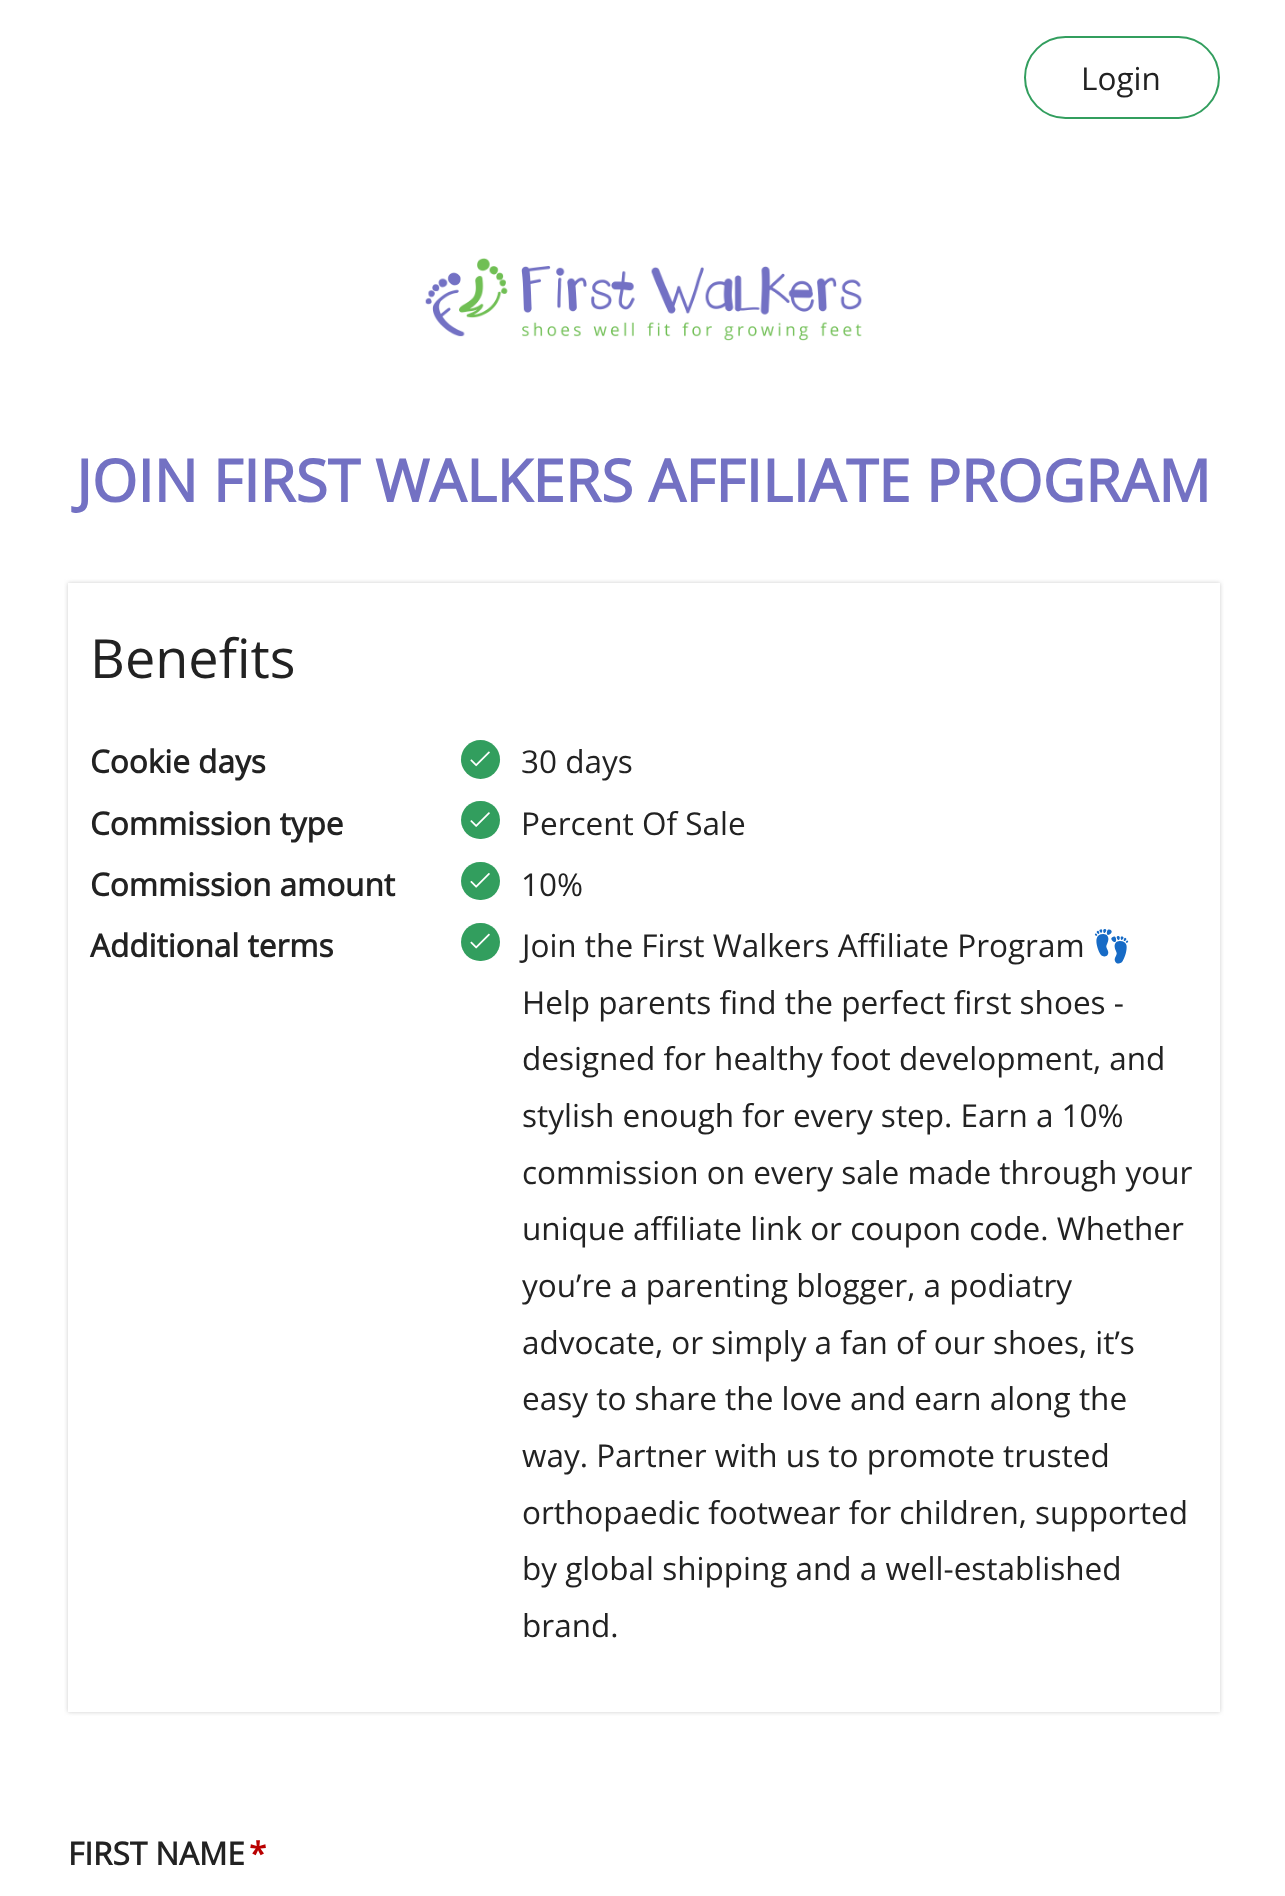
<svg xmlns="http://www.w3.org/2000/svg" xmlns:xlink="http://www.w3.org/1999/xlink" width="1285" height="1896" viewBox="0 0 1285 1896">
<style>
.cls-1{font:31.5px Open Sans;fill:#222222}
.cls-2{font:bold 58.5px Open Sans;fill:#7371c3}
.cls-3{font:54px Open Sans;fill:#222222}
.cls-4{font:bold 31.5px Open Sans;fill:#222222}
.cls-5{font:31.5px Noto Color Emoji;fill:#222222}
.cls-6{font:bold 31.5px Open Sans;fill:#b90000}
</style>
<rect width="100%" height="100%" fill="#ffffff"/>
<rect fill="none" stroke="#329e5e" stroke-width="2" x="1025" y="37" width="194" height="81" rx="40.5"/>
<image xlink:href="image0.png" x="425" y="258" width="437" height="83"/>
<rect fill="#cccccc" filter="blur(2px)" x="68" y="583" width="1152" height="1129"/>
<rect fill="#ffffff" x="68" y="583" width="1152" height="1129"/>
<circle fill="#329e5e" cx="480.5" cy="759.5" r="19.5"/>
<image xlink:href="image1.png" x="470" y="751" width="20" height="16"/>
<rect fill="#329e5e" x="461" y="801" width="39" height="38" rx="19"/>
<image xlink:href="image2.png" x="470" y="812" width="20" height="15"/>
<rect fill="#329e5e" x="461" y="862" width="39" height="38" rx="19"/>
<image xlink:href="image3.png" x="470" y="873" width="20" height="15"/>
<rect fill="#329e5e" x="461" y="923" width="39" height="38" rx="19"/>
<image xlink:href="image4.png" x="470" y="933" width="20" height="16"/>
<text class="cls-1" x="1081" y="90">Login</text>
<text class="cls-2" x="76" y="502">JOIN FIRST WALKERS AFFILIATE PROGRAM</text>
<text class="cls-3" x="90" y="678">Benefits</text>
<text class="cls-4" x="90" y="773">Cookie days</text>
<text class="cls-1" x="521" y="773">30 days</text>
<text class="cls-4" x="90" y="835">Commission type</text>
<text class="cls-1" x="521" y="835">Percent Of Sale</text>
<text class="cls-4" x="90" y="896">Commission amount</text>
<text class="cls-1" x="521" y="896">10%</text>
<text class="cls-4" x="90" y="957">Additional terms</text>
<text class="cls-1" x="522" y="957">Join the First Walkers Affiliate Program</text>
<text class="cls-5" x="1092" y="957">👣</text>
<text class="cls-1"><tspan x="522" y="1014">Help parents find the perfect first shoes -</tspan><tspan x="522" y="1070">designed for healthy foot development, and</tspan><tspan x="522" y="1127">stylish enough for every step. Earn a 10%</tspan><tspan x="522" y="1184">commission on every sale made through your</tspan><tspan x="522" y="1240">unique affiliate link or coupon code. Whether</tspan><tspan x="522" y="1297">you’re a parenting blogger, a podiatry</tspan><tspan x="522" y="1354">advocate, or simply a fan of our shoes, it’s</tspan><tspan x="522" y="1410">easy to share the love and earn along the</tspan><tspan x="522" y="1467">way. Partner with us to promote trusted</tspan><tspan x="522" y="1524">orthopaedic footwear for children, supported</tspan><tspan x="522" y="1580">by global shipping and a well-established</tspan><tspan x="522" y="1637">brand.</tspan></text>
<text class="cls-4" x="68" y="1865">FIRST NAME</text>
<text class="cls-6" x="249" y="1865">*</text>
</svg>
